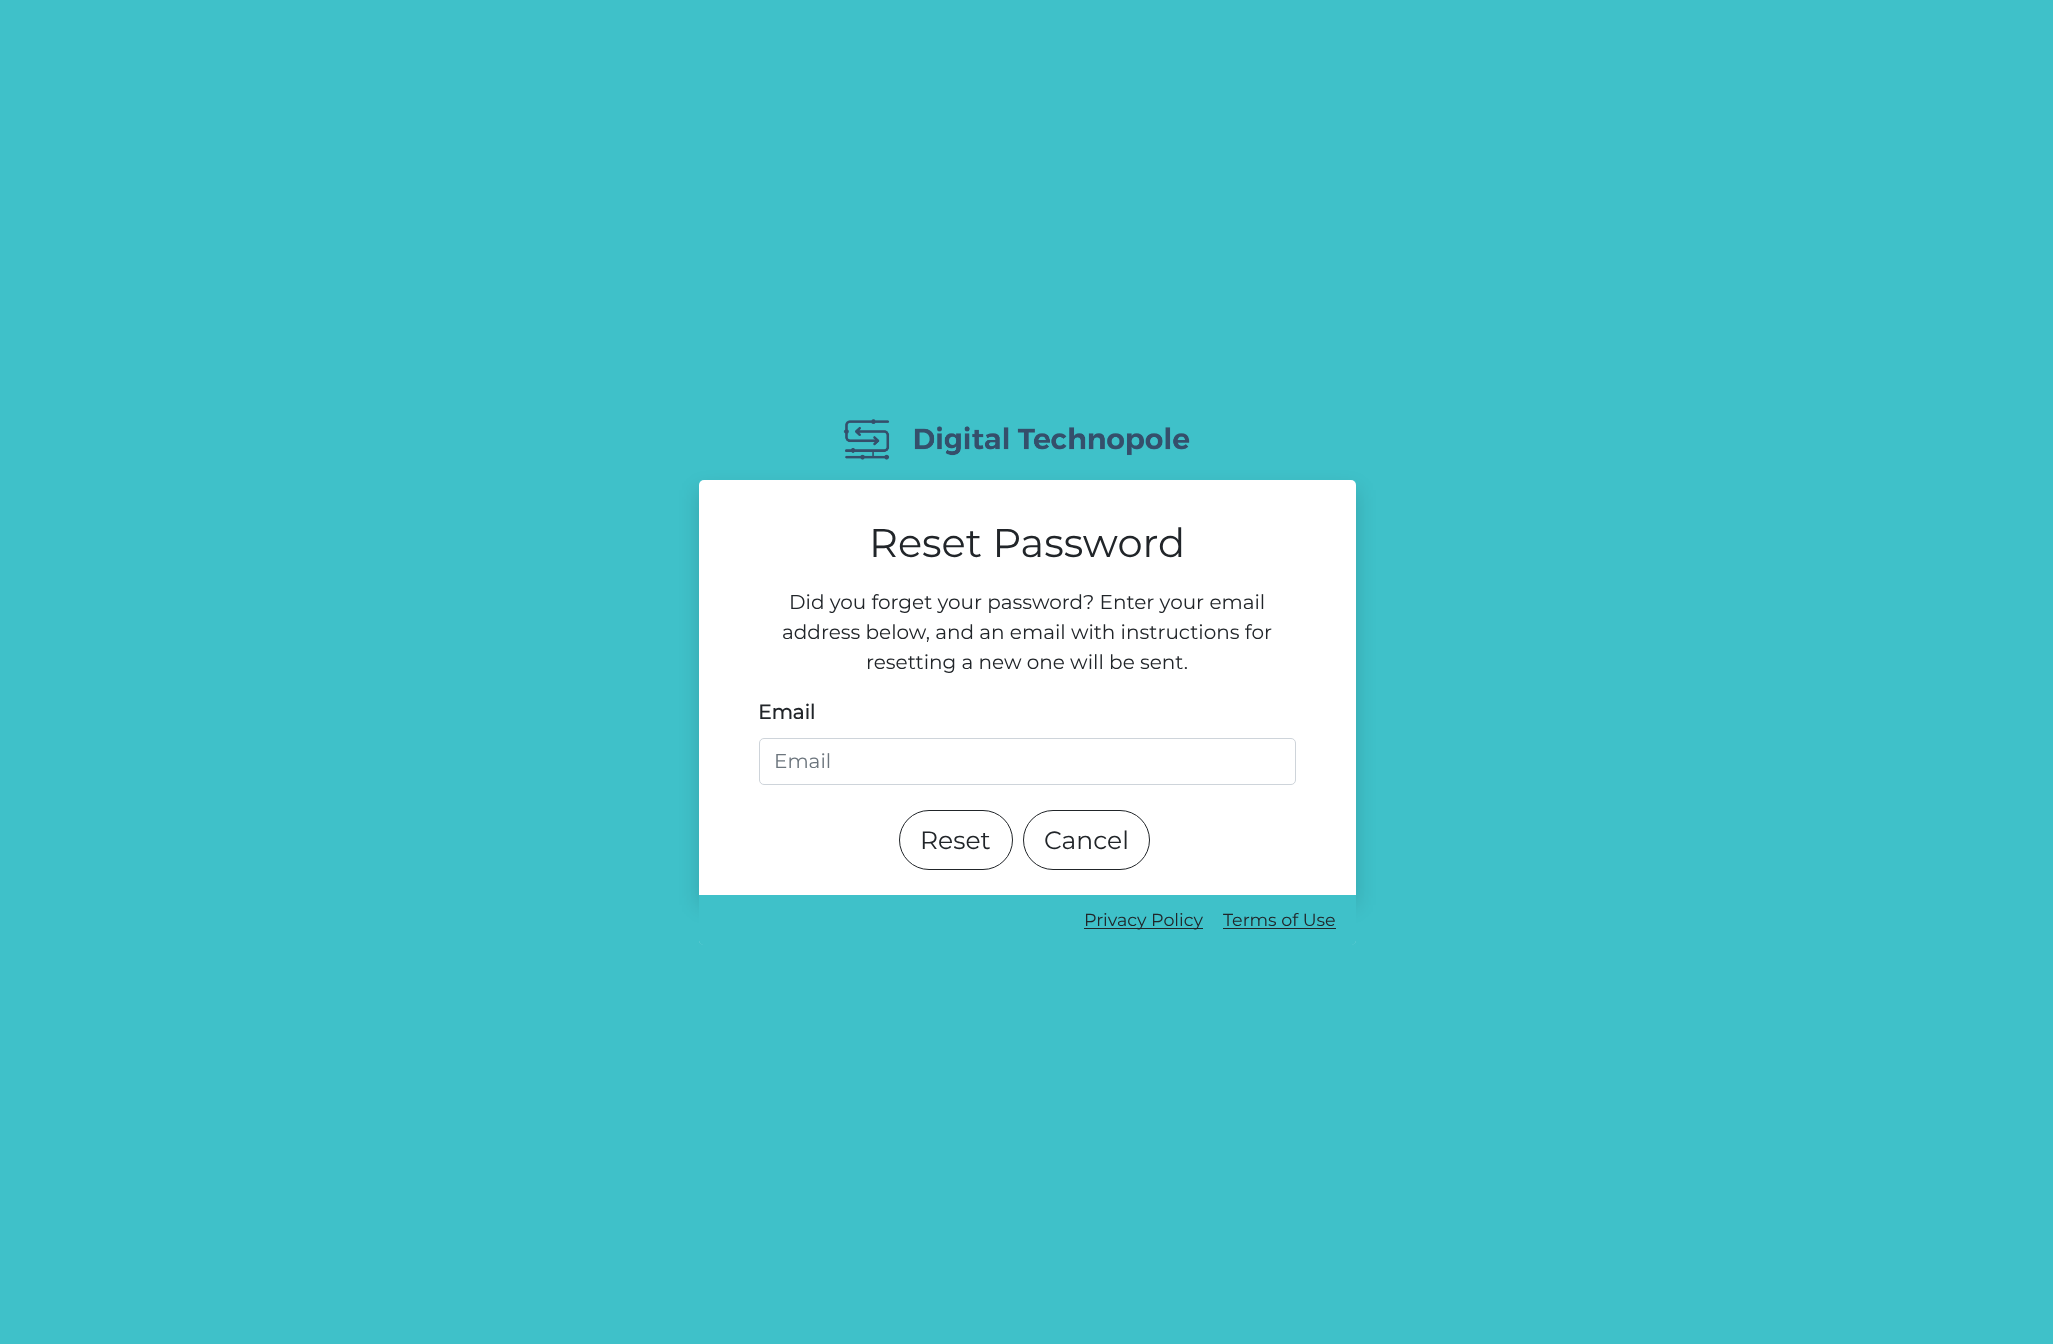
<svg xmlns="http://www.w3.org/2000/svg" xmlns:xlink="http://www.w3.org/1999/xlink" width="2053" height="1344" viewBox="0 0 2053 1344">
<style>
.cls-1{font:100 40px Montserrat;fill:#212529}
.cls-2{font:100 20px Montserrat;fill:#212529}
.cls-3{font:bold 20px Montserrat;fill:#212529}
.cls-4{font:100 20px Montserrat;fill:#6c757d}
.cls-5{font:100 25px Montserrat;fill:#212529}
.cls-6{font:100 17.5px Montserrat;fill:#212529}
</style>
<defs>
<clipPath id="clip1"><path d="M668 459H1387V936H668ZM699 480H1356V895H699Z" clip-rule="evenodd"/></clipPath>
</defs>
<rect width="100%" height="100%" fill="#3fc1c9"/>
<image xlink:href="image0.png" x="843" y="419" width="347" height="41"/>
<rect fill="#ffffff" x="699" y="480" width="657" height="465" rx="5"/>
<g clip-path="url(#clip1)">
<rect fill="#000000" fill-opacity="0.15" filter="blur(10px)" x="699" y="490" width="657" height="415"/>
</g>
<rect fill="none" stroke="#ced4da" x="759.5" y="738.5" width="536" height="46" rx="4.5"/>
<rect fill="none" stroke="#212529" x="899.5" y="810.5" width="113" height="59" rx="29.5"/>
<rect fill="none" stroke="#212529" x="1023.5" y="810.5" width="126" height="59" rx="29.5"/>
<path fill="#3fc1c9" d="M699 895H1356V941C1356 943 1354 945 1352 945H703C701 945 699 943 699 941Z"/>
<rect fill="#212529" x="1084" y="928" width="119" height="1"/>
<rect fill="#212529" x="1223" y="928" width="113" height="1"/>
<text class="cls-1" x="869" y="557">Reset Password</text>
<text class="cls-2" x="789" y="609">Did you forget your password? Enter your email</text>
<text class="cls-2" x="782" y="639">address below, and an email with instructions for</text>
<text class="cls-2" x="866" y="669">resetting a new one will be sent.</text>
<text class="cls-3" x="758" y="719">Email</text>
<text class="cls-4" x="774" y="768">Email</text>
<text class="cls-5" x="920" y="849">Reset</text>
<text class="cls-5" x="1044" y="849">Cancel</text>
<text class="cls-6" x="1084" y="926">Privacy Policy</text>
<text class="cls-6" x="1223" y="926">Terms of Use</text>
</svg>
